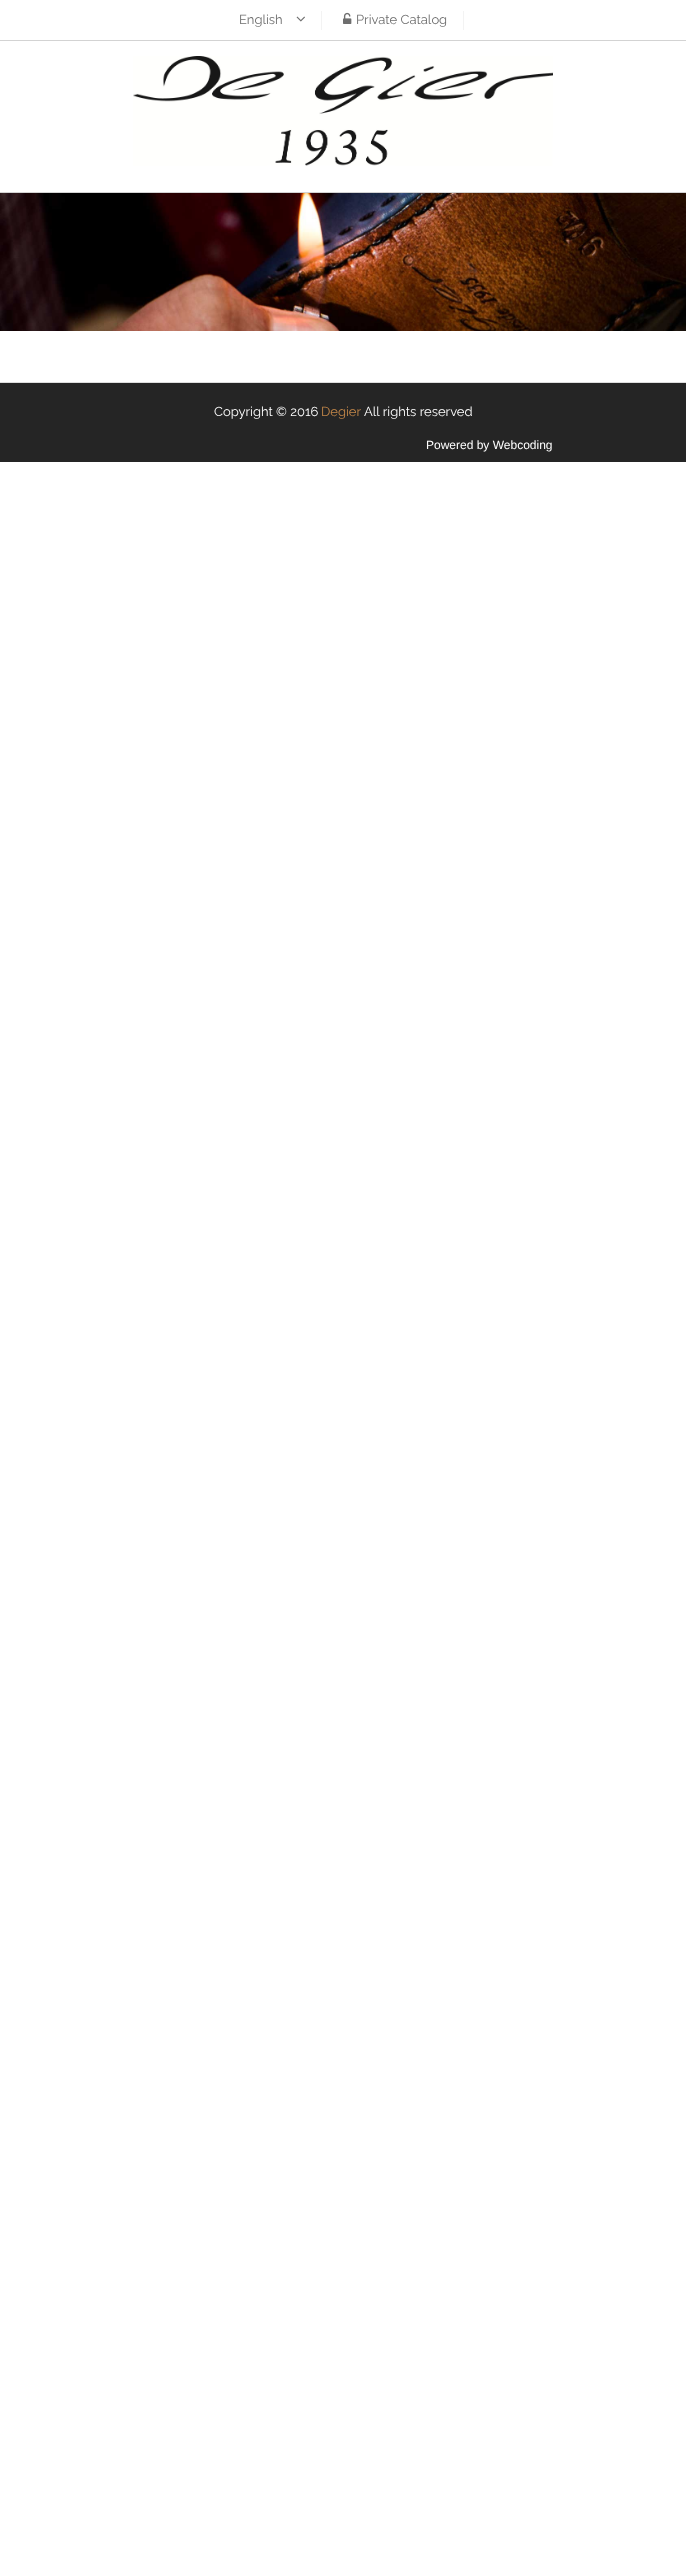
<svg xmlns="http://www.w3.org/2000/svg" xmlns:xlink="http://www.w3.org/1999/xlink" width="686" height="2562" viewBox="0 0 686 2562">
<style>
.cls-1{font:13px Raleway;fill:#6e6e6e}
.cls-2{font:13px Raleway;fill:#ffffff}
.cls-3{font:13px Raleway;fill:#c38749}
.cls-4{font:12px Liberation Sans;fill:#ffffff}
</style>
<rect width="100%" height="100%" fill="#ffffff"/>
<rect fill="#d3d3d3" x="0" y="40" width="686" height="1"/>
<rect fill="#f3f3f3" x="321" y="11" width="1" height="19"/>
<image xlink:href="image0.png" x="296" y="16" width="9" height="6"/>
<rect fill="#f3f3f3" x="463" y="11" width="1" height="19"/>
<image xlink:href="image1.png" x="343" y="12" width="9" height="12"/>
<rect fill="#d3d3d3" x="0" y="192" width="686" height="1"/>
<image xlink:href="image2.png" x="133" y="56" width="420" height="110"/>
<image xlink:href="image3.png" x="0" y="193" width="686" height="138"/>
<rect fill="#dddddd" x="0" y="382" width="686" height="1"/>
<rect fill="#252525" x="0" y="383" width="686" height="79"/>
<text class="cls-1" x="239" y="24">English</text>
<text class="cls-1" x="356" y="24">Private Catalog</text>
<text class="cls-2" x="214" y="416">Copyright © 2016</text>
<text class="cls-3" x="321" y="416">Degier</text>
<text class="cls-2" x="364" y="416">All rights reserved</text>
<text class="cls-4" x="426" y="449">Powered by Webcoding</text>
</svg>
